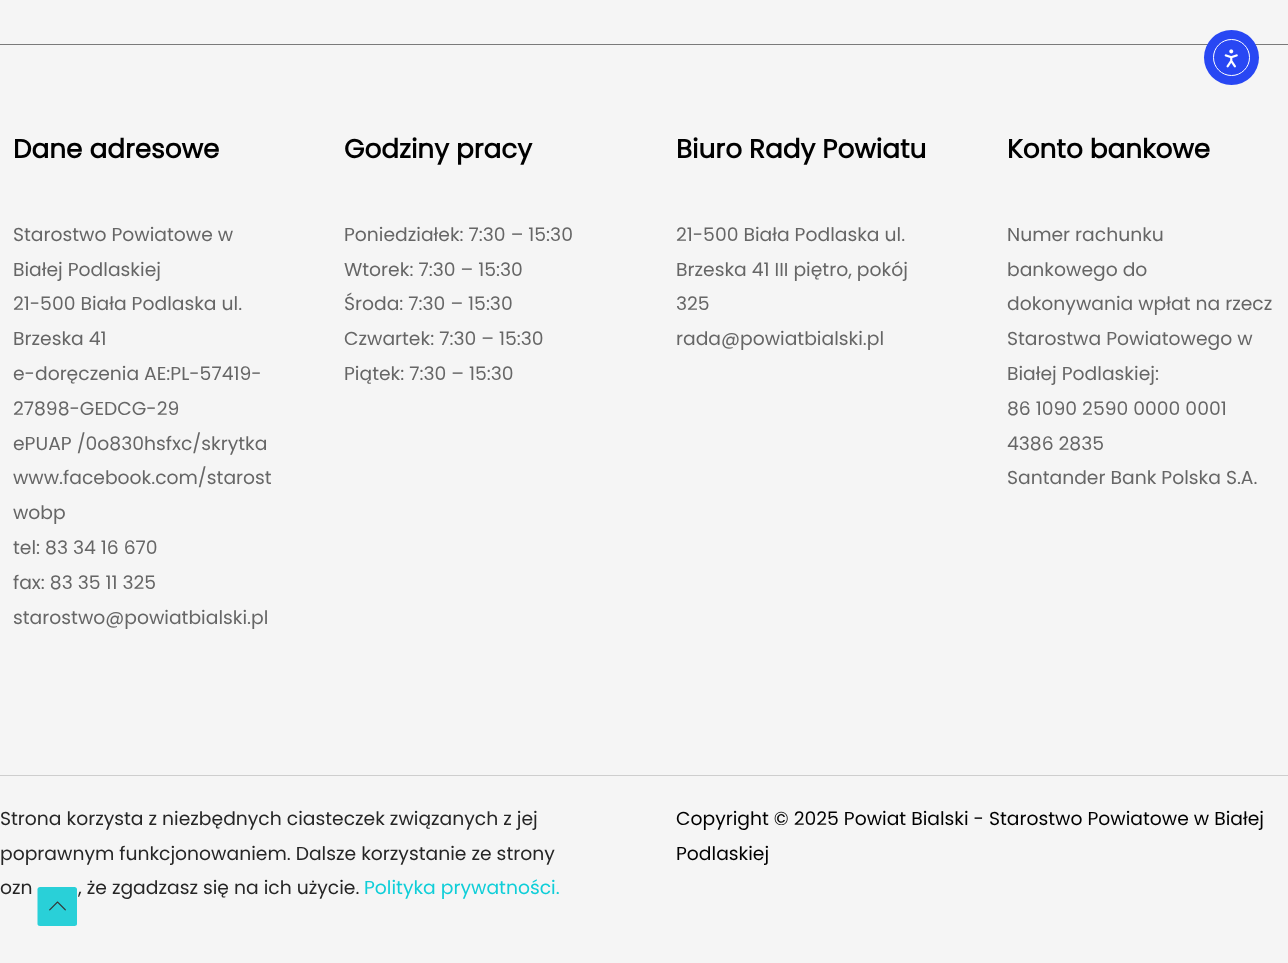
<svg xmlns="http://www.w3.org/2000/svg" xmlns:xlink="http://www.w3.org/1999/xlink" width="1288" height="963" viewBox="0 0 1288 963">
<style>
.cls-1{font:bold 26.25px Poppins;fill:#000000}
.cls-2{font:18.75px Poppins;fill:#666666}
.cls-3{font:18.75px Poppins;fill:#262626}
.cls-4{font:18.75px Poppins;fill:#0fced8}
.cls-5{font:18.75px Poppins;fill:#000000}
</style>
<rect width="100%" height="100%" fill="#f5f5f5"/>
<rect fill="#7a7a7a" x="0" y="44" width="1288" height="1"/>
<circle fill="#2847f3" cx="1231.5" cy="57.5" r="27.5"/>
<circle fill="none" stroke="#ffffff" cx="1231.5" cy="57.5" r="18"/>
<image xlink:href="image0.png" x="1224" y="49" width="14" height="19"/>
<rect fill="#cecece" x="0" y="775" width="1288" height="1"/>
<path fill="#29d0d8" d="M74.5 926H40C38.5 926 37.5 925 37.5 924V889.5C37.5 888 38.5 887 40 887H74.5C76 887 77 888 77 889.5V924C77 925 76 926 74.5 926Z"/>
<image xlink:href="image1.png" x="49" y="901" width="17" height="10"/>
<text class="cls-1" x="13" y="158">Dane adresowe</text>
<text class="cls-2"><tspan x="13" y="241">Starostwo Powiatowe w</tspan><tspan x="13" y="276">Białej Podlaskiej</tspan><tspan x="13" y="310">21-500 Biała Podlaska ul.</tspan><tspan x="13" y="345">Brzeska 41</tspan><tspan x="13" y="380">e-doręczenia AE:PL-57419-</tspan><tspan x="13" y="415">27898-GEDCG-29</tspan><tspan x="13" y="450">ePUAP /0o830hsfxc/skrytka</tspan><tspan x="13" y="484">www.facebook.com/starost</tspan><tspan x="13" y="519">wobp</tspan><tspan x="13" y="554">tel: 83 34 16 670</tspan><tspan x="13" y="589">fax: 83 35 11 325</tspan><tspan x="13" y="624">starostwo@powiatbialski.pl</tspan></text>
<text class="cls-1" x="344" y="158">Godziny pracy</text>
<text class="cls-2"><tspan x="344" y="241">Poniedziałek: 7:30 – 15:30</tspan><tspan x="344" y="276">Wtorek: 7:30 – 15:30</tspan><tspan x="344" y="310">Środa: 7:30 – 15:30</tspan><tspan x="344" y="345">Czwartek: 7:30 – 15:30</tspan><tspan x="344" y="380">Piątek: 7:30 – 15:30</tspan></text>
<text class="cls-1" x="676" y="158">Biuro Rady Powiatu</text>
<text class="cls-2"><tspan x="676" y="241">21-500 Biała Podlaska ul.</tspan><tspan x="676" y="276">Brzeska 41 III piętro, pokój</tspan><tspan x="676" y="310">325</tspan><tspan x="676" y="345">rada@powiatbialski.pl</tspan></text>
<text class="cls-1" x="1007" y="158">Konto bankowe</text>
<text class="cls-2"><tspan x="1007" y="241">Numer rachunku</tspan><tspan x="1007" y="276">bankowego do</tspan><tspan x="1007" y="310">dokonywania wpłat na rzecz</tspan><tspan x="1007" y="345">Starostwa Powiatowego w</tspan><tspan x="1007" y="380">Białej Podlaskiej:</tspan><tspan x="1007" y="415">86 1090 2590 0000 0001</tspan><tspan x="1007" y="450">4386 2835</tspan><tspan x="1007" y="484">Santander Bank Polska S.A.</tspan></text>
<text class="cls-3"><tspan x="0" y="825">Strona korzysta z niezbędnych ciasteczek związanych z jej</tspan><tspan x="0" y="860">poprawnym funkcjonowaniem. Dalsze korzystanie ze strony</tspan><tspan x="0" y="894">ozn</tspan></text>
<text class="cls-3" x="78" y="894">, że zgadzasz się na ich użycie.</text>
<text class="cls-4" x="364" y="894">Polityka prywatności.</text>
<text class="cls-5"><tspan x="676" y="825">Copyright © 2025 Powiat Bialski - Starostwo Powiatowe w Białej</tspan><tspan x="676" y="860">Podlaskiej</tspan></text>
</svg>
